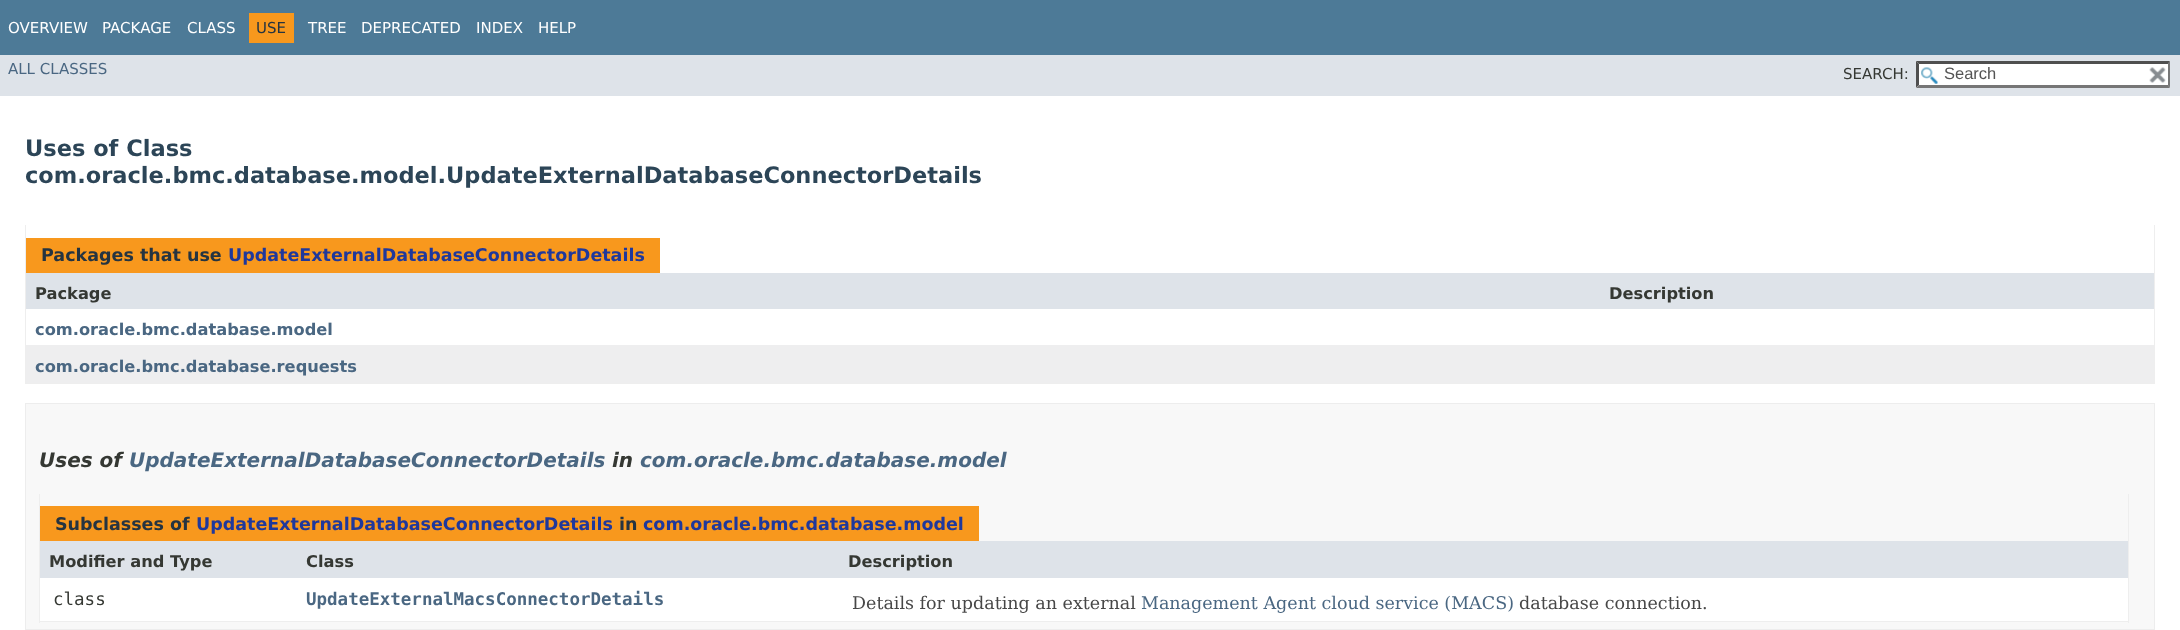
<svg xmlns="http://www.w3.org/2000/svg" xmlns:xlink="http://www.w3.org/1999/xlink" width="2180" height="630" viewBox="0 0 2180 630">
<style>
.cls-1{font:15px DejaVu Sans;fill:#ffffff}
.cls-2{font:15px DejaVu Sans;fill:#253441}
.cls-3{font:15px DejaVu Sans;fill:#4a6782}
.cls-4{font:15px DejaVu Sans;fill:#353833}
.cls-5{font:16.5px Liberation Sans;fill:#545454}
.cls-6{font:bold 22.5px DejaVu Sans;fill:#2c4557}
.cls-7{font:bold 17.5px DejaVu Sans;fill:#253441}
.cls-8{font:bold 17.5px DejaVu Sans;fill:#1f389c}
.cls-9{font:bold 16.25px DejaVu Sans;fill:#353833}
.cls-10{font:bold 16.25px DejaVu Sans;fill:#4a6782}
.cls-11{font:italic bold 20px DejaVu Sans;fill:#353833}
.cls-12{font:italic bold 20px DejaVu Sans;fill:#4a6782}
.cls-13{font:17.5px DejaVu Sans Mono;fill:#353833}
.cls-14{font:bold 17.5px DejaVu Sans Mono;fill:#4a6782}
.cls-15{font:17.5px DejaVu Serif;fill:#474747}
.cls-16{font:17.5px DejaVu Serif;fill:#4a6782}
</style>
<rect width="100%" height="100%" fill="#ffffff"/>
<rect fill="#4d7a97" x="0" y="0" width="2180" height="55"/>
<rect fill="#f8981d" x="249" y="13" width="45" height="30"/>
<rect fill="#dee3e9" x="0" y="55" width="2180" height="41"/>
<rect fill="#ffffff" x="1916" y="61" width="254" height="27"/>
<image xlink:href="image0.png" x="1921" y="67" width="17" height="17"/>
<path fill="#4f4f4f" d="M1916 61H2170L2168 64H1919Z"/>
<path fill="#767676" d="M2170 61V87.5L2167.5 85V64Z"/>
<path fill="#767676" d="M2170 88H1916L1919 85H2168Z"/>
<path fill="#4f4f4f" d="M1916 87.5V61L1919 64V85Z"/>
<rect fill="#ffffff" x="2167" y="64" width="1" height="21"/>
<image xlink:href="image1.png" x="2149" y="67" width="17" height="16"/>
<rect fill="#eeeeee" x="2154" y="225" width="1" height="159"/>
<rect fill="#eeeeee" x="25" y="383" width="2130" height="1"/>
<rect fill="#eeeeee" x="25" y="225" width="1" height="159"/>
<rect fill="#f8981d" x="26" y="238" width="634" height="35"/>
<rect fill="#dee3e9" x="26" y="273" width="2128" height="36"/>
<rect fill="#eeeeef" x="26" y="345" width="2128" height="38"/>
<rect fill="#f8f8f8" stroke="#ededed" x="25.5" y="403.5" width="2129" height="226"/>
<rect fill="#eeeeee" x="2128" y="494" width="1" height="129"/>
<rect fill="#eeeeee" x="39" y="621" width="2090" height="1"/>
<rect fill="#eeeeee" x="39" y="494" width="1" height="129"/>
<rect fill="#f8981d" x="40" y="506" width="939" height="35"/>
<rect fill="#dee3e9" x="40" y="541" width="2088" height="37"/>
<rect fill="#ffffff" x="40" y="578" width="2088" height="43"/>
<text class="cls-1" x="8" y="33">OVERVIEW</text>
<text class="cls-1" x="102" y="33">PACKAGE</text>
<text class="cls-1" x="187" y="33">CLASS</text>
<text class="cls-2" x="256" y="33">USE</text>
<text class="cls-1" x="308" y="33">TREE</text>
<text class="cls-1" x="361" y="33">DEPRECATED</text>
<text class="cls-1" x="476" y="33">INDEX</text>
<text class="cls-1" x="538" y="33">HELP</text>
<text class="cls-3" x="8" y="74">ALL CLASSES</text>
<text class="cls-4" x="1843" y="79">SEARCH:</text>
<text class="cls-5" x="1944" y="79">Search</text>
<text class="cls-6"><tspan x="25" y="156">Uses of Class</tspan><tspan x="25" y="183">com.oracle.bmc.database.model.UpdateExternalDatabaseConnectorDetails</tspan></text>
<text class="cls-7" x="41" y="261">Packages that use</text>
<text class="cls-8" x="228" y="261">UpdateExternalDatabaseConnectorDetails</text>
<text class="cls-9" x="35" y="299">Package</text>
<text class="cls-9" x="1609" y="299">Description</text>
<text class="cls-10" x="35" y="335">com.oracle.bmc.database.model</text>
<text class="cls-10" x="35" y="372">com.oracle.bmc.database.requests</text>
<text class="cls-11" x="39" y="467">Uses of</text>
<text class="cls-12" x="129" y="467">UpdateExternalDatabaseConnectorDetails</text>
<text class="cls-11" x="612" y="467">in</text>
<text class="cls-12" x="640" y="467">com.oracle.bmc.database.model</text>
<text class="cls-7" x="55" y="530">Subclasses of</text>
<text class="cls-8" x="196" y="530">UpdateExternalDatabaseConnectorDetails</text>
<text class="cls-7" x="619" y="530">in</text>
<text class="cls-8" x="643" y="530">com.oracle.bmc.database.model</text>
<text class="cls-9" x="49" y="567">Modifier and Type</text>
<text class="cls-9" x="306" y="567">Class</text>
<text class="cls-9" x="848" y="567">Description</text>
<text class="cls-13" x="53" y="605">class</text>
<text class="cls-14" x="306" y="605">UpdateExternalMacsConnectorDetails</text>
<text class="cls-15" x="852" y="609">Details for updating an external</text>
<text class="cls-16" x="1141" y="609">Management Agent cloud service (MACS)</text>
<text class="cls-15" x="1519" y="609">database connection.</text>
</svg>
